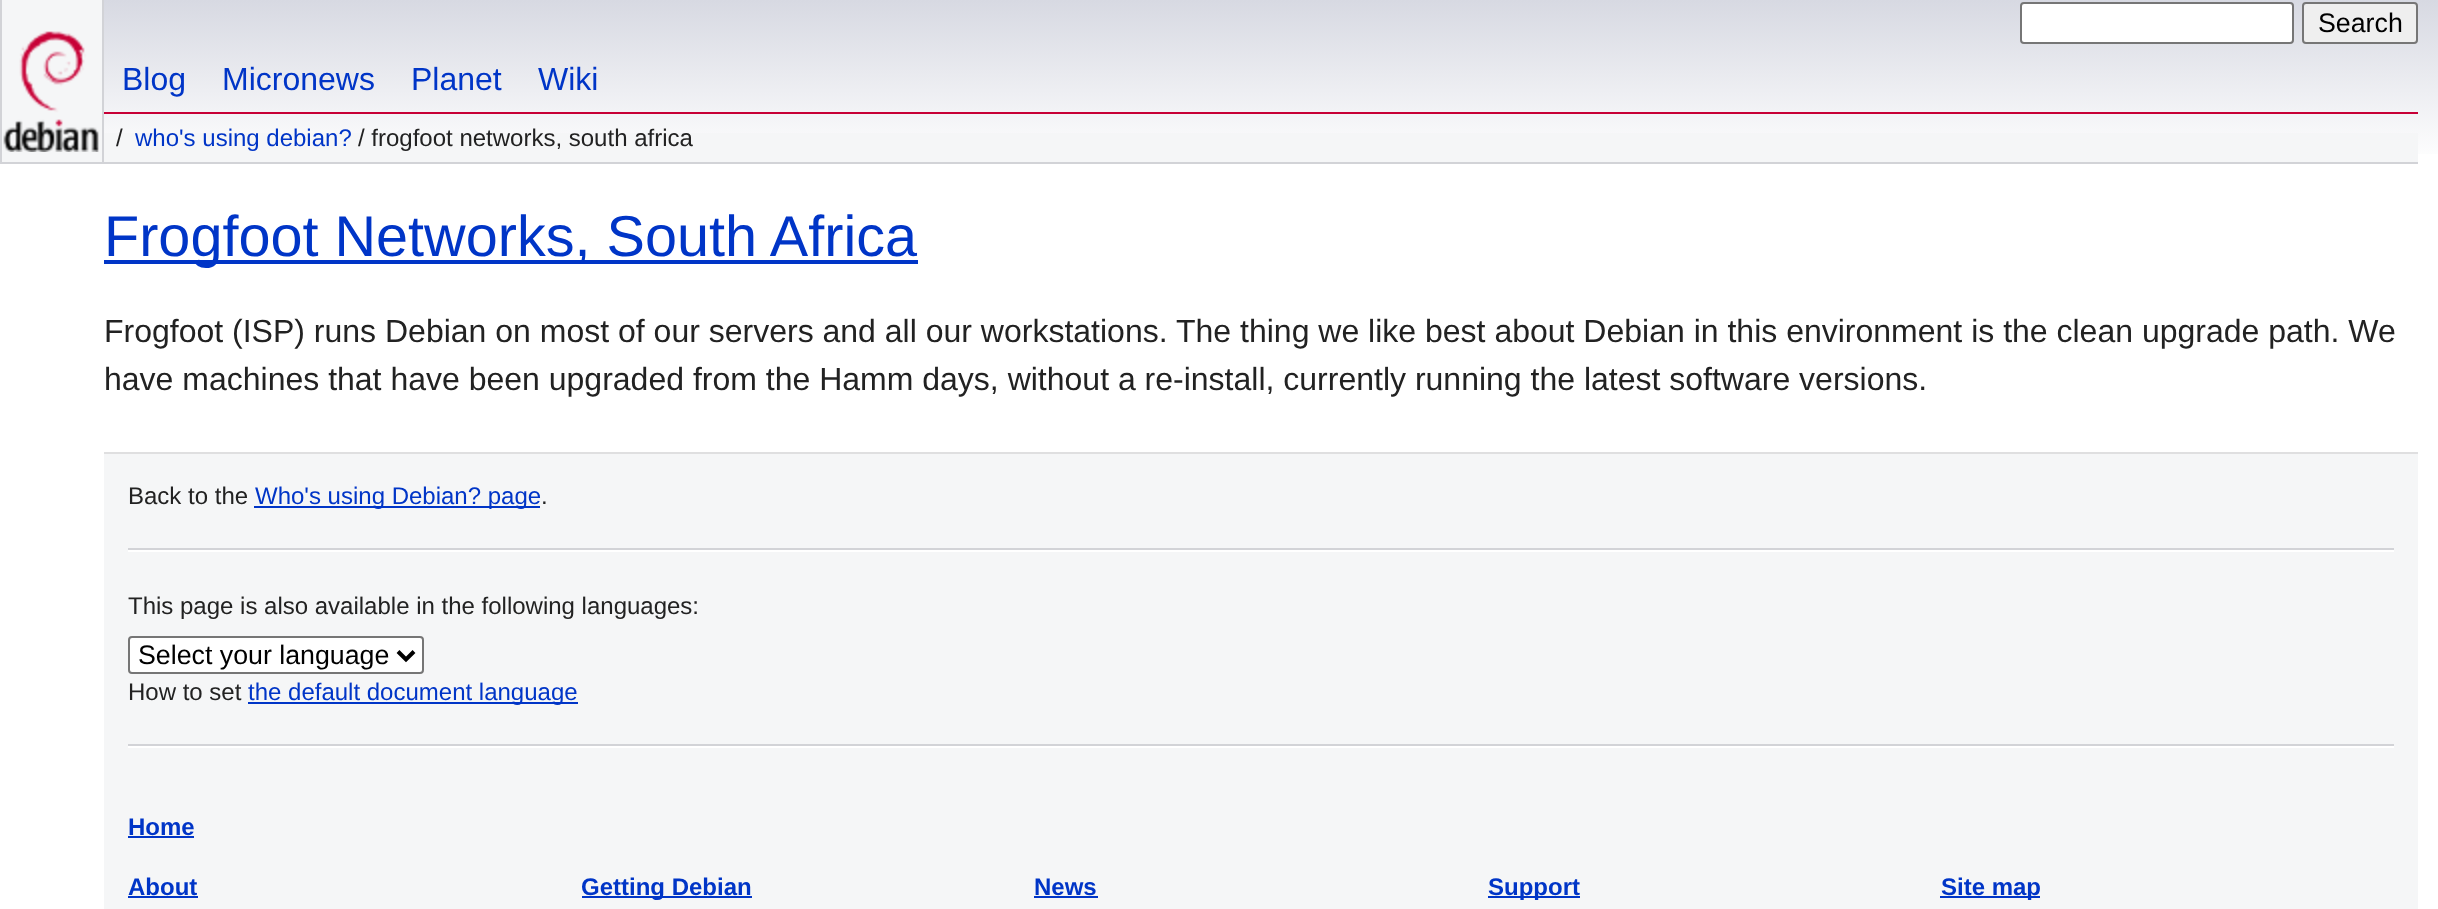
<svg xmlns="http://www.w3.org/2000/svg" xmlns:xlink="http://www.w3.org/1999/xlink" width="2438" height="909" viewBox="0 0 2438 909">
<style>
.cls-1{font:26.75px Liberation Sans;fill:#000000}
.cls-2{font:32px Liberation Sans;fill:#0035c7}
.cls-3{font:24px Liberation Sans;fill:#222222}
.cls-4{font:24px Liberation Sans;fill:#0035c7}
.cls-5{font:57.6px Liberation Sans;fill:#0035c7}
.cls-6{font:32px Liberation Sans;fill:#222222}
.cls-7{font:bold 24px Liberation Sans;fill:#0035c7}
</style>
<defs>
<linearGradient id="g1" gradientUnits="userSpaceOnUse" x1="1219" y1="0" x2="1219" y2="164"><stop offset="0" stop-color="#d7d9e2"/><stop offset="1" stop-color="#ffffff"/></linearGradient>
</defs>
<rect width="100%" height="100%" fill="#ffffff"/>
<rect fill="url(#g1)" x="104" y="0" width="2334" height="154"/>
<rect fill="#f5f6f7" x="2" y="0" width="100" height="162"/>
<rect fill="#d2d3d7" x="102" y="0" width="2" height="164"/>
<rect fill="#d2d3d7" x="0" y="162" width="104" height="2"/>
<rect fill="#d2d3d7" x="0" y="0" width="2" height="164"/>
<image xlink:href="image0.png" x="3" y="31" width="96" height="121"/>
<rect fill="#ffffff" stroke="#767676" stroke-width="2" x="2021" y="3" width="272" height="40" rx="3"/>
<rect fill="#efefef" stroke="#767676" stroke-width="2" x="2303" y="3" width="114" height="40" rx="3"/>
<rect fill="#c70036" x="104" y="112" width="2314" height="2"/>
<rect fill="#f5f6f7" x="104" y="133" width="2314" height="29"/>
<rect fill="#d2d3d7" x="104" y="162" width="2314" height="2"/>
<rect fill="#0035c7" x="104" y="260" width="814" height="4"/>
<rect fill="#f5f6f7" x="104" y="454" width="2314" height="455"/>
<rect fill="#dfdfe0" x="104" y="452" width="2314" height="2"/>
<rect fill="#0035c7" x="254" y="506" width="286" height="2"/>
<rect fill="#d2d3d7" x="128" y="548" width="2266" height="2"/>
<rect fill="#ffffff" x="128" y="550" width="2266" height="2"/>
<rect fill="#ffffff" stroke="#767676" stroke-width="2" x="129" y="637" width="294" height="36" rx="3"/>
<path fill="none" stroke="#000000" stroke-width="4" d="M398 651.5L406 659.5L414 651.5"/>
<rect fill="#0035c7" x="248" y="702" width="330" height="2"/>
<rect fill="#d2d3d7" x="128" y="744" width="2266" height="2"/>
<rect fill="#ffffff" x="128" y="746" width="2266" height="2"/>
<rect fill="#0035c7" x="128" y="836" width="66" height="2"/>
<rect fill="#0035c7" x="128" y="896" width="70" height="2"/>
<rect fill="#0035c7" x="582" y="896" width="170" height="2"/>
<rect fill="#0035c7" x="1034" y="896" width="64" height="2"/>
<rect fill="#0035c7" x="1488" y="896" width="92" height="2"/>
<rect fill="#0035c7" x="1940" y="896" width="100" height="2"/>
<text class="cls-1" x="2318" y="32">Search</text>
<text class="cls-2" x="122" y="90">Blog</text>
<text class="cls-2" x="222" y="90">Micronews</text>
<text class="cls-2" x="411" y="90">Planet</text>
<text class="cls-2" x="538" y="90">Wiki</text>
<text class="cls-3" x="116" y="146">/</text>
<text class="cls-4" x="135" y="146">who's using debian?</text>
<text class="cls-3" x="358" y="146">/ frogfoot networks, south africa</text>
<text class="cls-5" x="104" y="256">Frogfoot Networks, South Africa</text>
<text class="cls-6" x="104" y="342">Frogfoot (ISP) runs Debian on most of our servers and all our workstations.</text>
<text class="cls-6" x="1176" y="342">The thing we like best about Debian in this environment is the clean upgrade path. We</text>
<text class="cls-6" x="104" y="390">have machines that have been upgraded from the Hamm days, without a re-install, currently running the latest software versions.</text>
<text class="cls-3" x="128" y="504">Back to the</text>
<text class="cls-4" x="255" y="504">Who's using Debian? page</text>
<text class="cls-3" x="541" y="504">.</text>
<text class="cls-3" x="128" y="614">This page is also available in the following languages:</text>
<text class="cls-1" x="138" y="664">Select your language</text>
<text class="cls-3" x="128" y="700">How to set</text>
<text class="cls-4" x="248" y="700">the default document language</text>
<text class="cls-7" x="128" y="835">Home</text>
<text class="cls-7" x="128" y="895">About</text>
<text class="cls-7" x="581" y="895">Getting Debian</text>
<text class="cls-7" x="1034" y="895">News</text>
<text class="cls-7" x="1488" y="895">Support</text>
<text class="cls-7" x="1941" y="895">Site map</text>
</svg>
